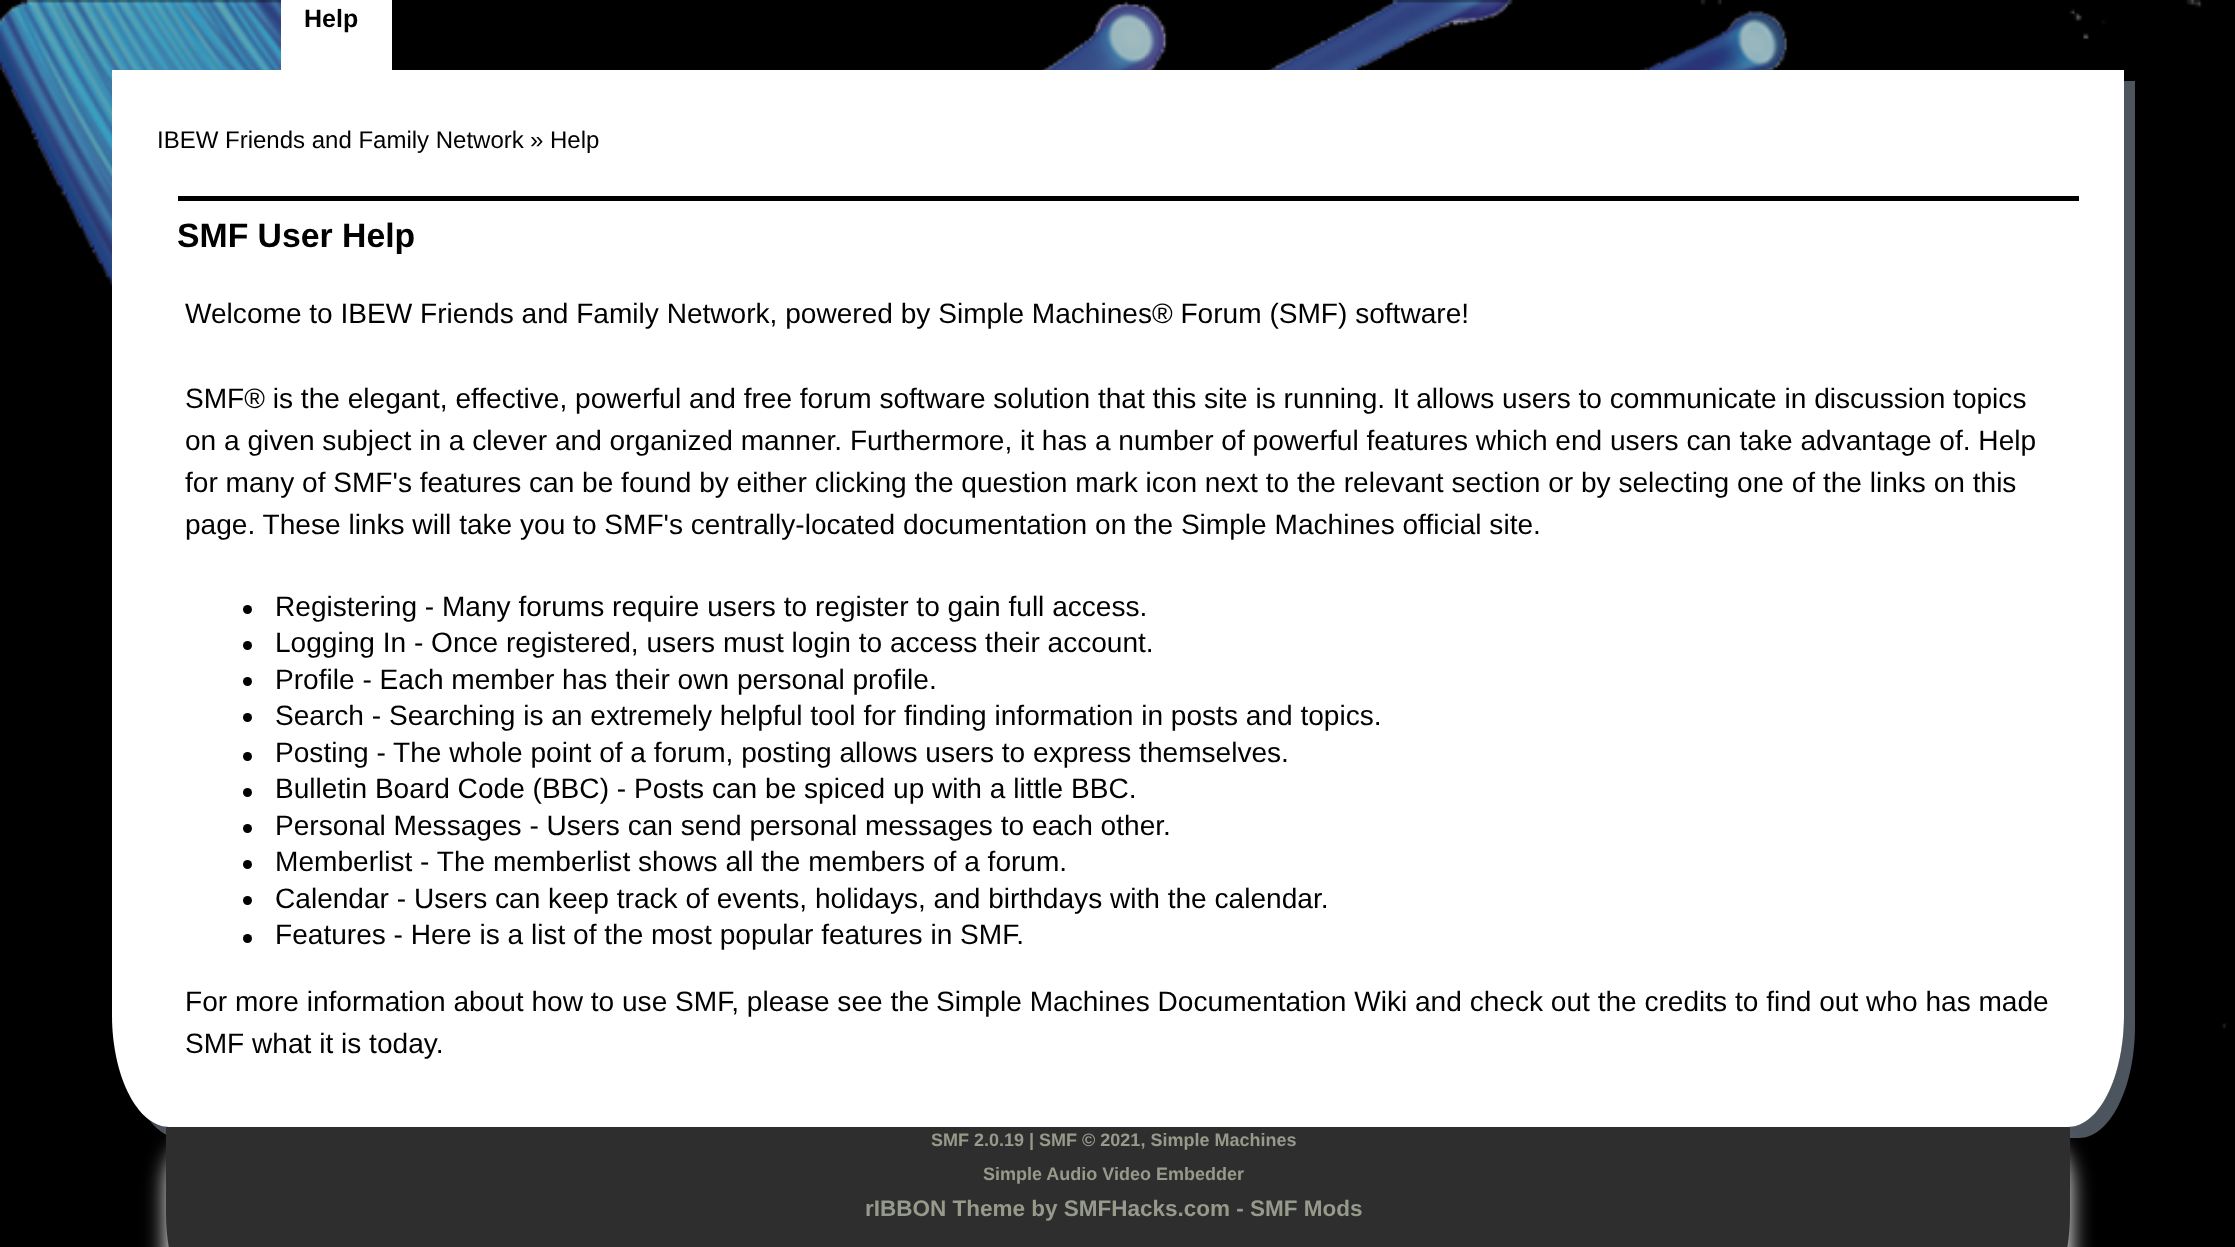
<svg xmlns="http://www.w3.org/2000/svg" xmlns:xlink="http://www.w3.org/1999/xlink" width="2235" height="1247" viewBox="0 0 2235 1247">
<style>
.cls-1{font:bold 25px Liberation Sans;fill:#000000}
.cls-2{font:24px Liberation Sans;fill:#000000}
.cls-3{font:bold 33.75px Liberation Sans;fill:#000000}
.cls-4{font:28.08px Liberation Sans;fill:#000000}
.cls-5{font:bold 18px Liberation Sans;fill:#969a8b}
.cls-6{font:bold 22.5px Liberation Sans;fill:#969a8b}
</style>
<rect width="100%" height="100%" fill="#000000"/>
<image xlink:href="image0.png" x="0" y="0" width="2228" height="1029"/>
<rect fill="#ffffff" x="281" y="0" width="111" height="70"/>
<path fill="#4c545d" d="M150 1121C159 1132 169 1138 180 1138H2079C2110 1138 2135 1088 2135 1026V81H2124V1015C2124 1077 2099 1127 2068 1127H169C162 1127 156 1125 150 1121Z"/>
<path fill="#ffffff" d="M112 70H2124V1015C2124 1077 2099 1127 2068 1127H169C138 1127 112 1077 112 1015Z"/>
<rect fill="#000000" x="178" y="196" width="1901" height="5"/>
<circle fill="#000000" cx="247.5" cy="609.5" r="4.5"/>
<circle fill="#000000" cx="247.5" cy="645.5" r="4.5"/>
<circle fill="#000000" cx="247.5" cy="681.5" r="4.5"/>
<circle fill="#000000" cx="247.5" cy="717.5" r="4.5"/>
<circle fill="#000000" cx="247.5" cy="756.5" r="4.5"/>
<circle fill="#000000" cx="247.5" cy="792.5" r="4.5"/>
<circle fill="#000000" cx="247.5" cy="828.5" r="4.5"/>
<circle fill="#000000" cx="247.5" cy="864.5" r="4.5"/>
<circle fill="#000000" cx="247.5" cy="900.5" r="4.5"/>
<circle fill="#000000" cx="247.5" cy="938.5" r="4.5"/>
<rect fill="#ffffff" filter="blur(11px)" x="167" y="1130" width="1903" height="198" rx="56"/>
<path fill="#2e2e2e" d="M166 1127H2070V1213C2070 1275 2045 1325 2014 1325H223C192 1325 166 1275 166 1213Z"/>
<text class="cls-1" x="304" y="27">Help</text>
<text class="cls-2" x="157" y="148">IBEW Friends and Family Network</text>
<text class="cls-2" x="530" y="148">» Help</text>
<text class="cls-3" x="177" y="247">SMF User Help</text>
<text class="cls-4" x="185" y="323">Welcome to IBEW Friends and Family Network, powered by Simple Machines® Forum (SMF) software!</text>
<text class="cls-4"><tspan x="185" y="408">SMF® is the elegant, effective, powerful and free forum software solution that this site is running. It allows users to communicate in discussion topics</tspan><tspan x="185" y="450">on a given subject in a clever and organized manner. Furthermore, it has a number of powerful features which end users can take advantage of. Help</tspan><tspan x="185" y="492">for many of SMF's features can be found by either clicking the question mark icon next to the relevant section or by selecting one of the links on this</tspan><tspan x="185" y="534">page. These links will take you to SMF's centrally-located documentation on the Simple Machines official site.</tspan></text>
<text class="cls-4"><tspan x="275" y="616">Registering - Many forums require users to register to gain full access.</tspan><tspan x="275" y="652">Logging In - Once registered, users must login to access their account.</tspan><tspan x="275" y="689">Profile - Each member has their own personal profile.</tspan><tspan x="275" y="725">Search - Searching is an extremely helpful tool for finding information in posts and topics.</tspan><tspan x="275" y="762">Posting - The whole point of a forum, posting allows users to express themselves.</tspan><tspan x="275" y="798">Bulletin Board Code (BBC) - Posts can be spiced up with a little BBC.</tspan><tspan x="275" y="835">Personal Messages - Users can send personal messages to each other.</tspan><tspan x="275" y="871">Memberlist - The memberlist shows all the members of a forum.</tspan><tspan x="275" y="908">Calendar - Users can keep track of events, holidays, and birthdays with the calendar.</tspan><tspan x="275" y="944">Features - Here is a list of the most popular features in SMF.</tspan></text>
<text class="cls-4" x="185" y="1011">For more information about how to use SMF, please see the</text>
<text class="cls-4" x="936" y="1011">Simple Machines Documentation Wiki</text>
<text class="cls-4" x="1415" y="1011">and check out the credits to find out who has made</text>
<text class="cls-4" x="185" y="1053">SMF what it is today.</text>
<text class="cls-5" x="931" y="1146">SMF 2.0.19 | SMF © 2021, Simple Machines</text>
<text class="cls-5" x="983" y="1180">Simple Audio Video Embedder</text>
<text class="cls-6" x="865" y="1216">rIBBON Theme by SMFHacks.com - SMF Mods</text>
</svg>
